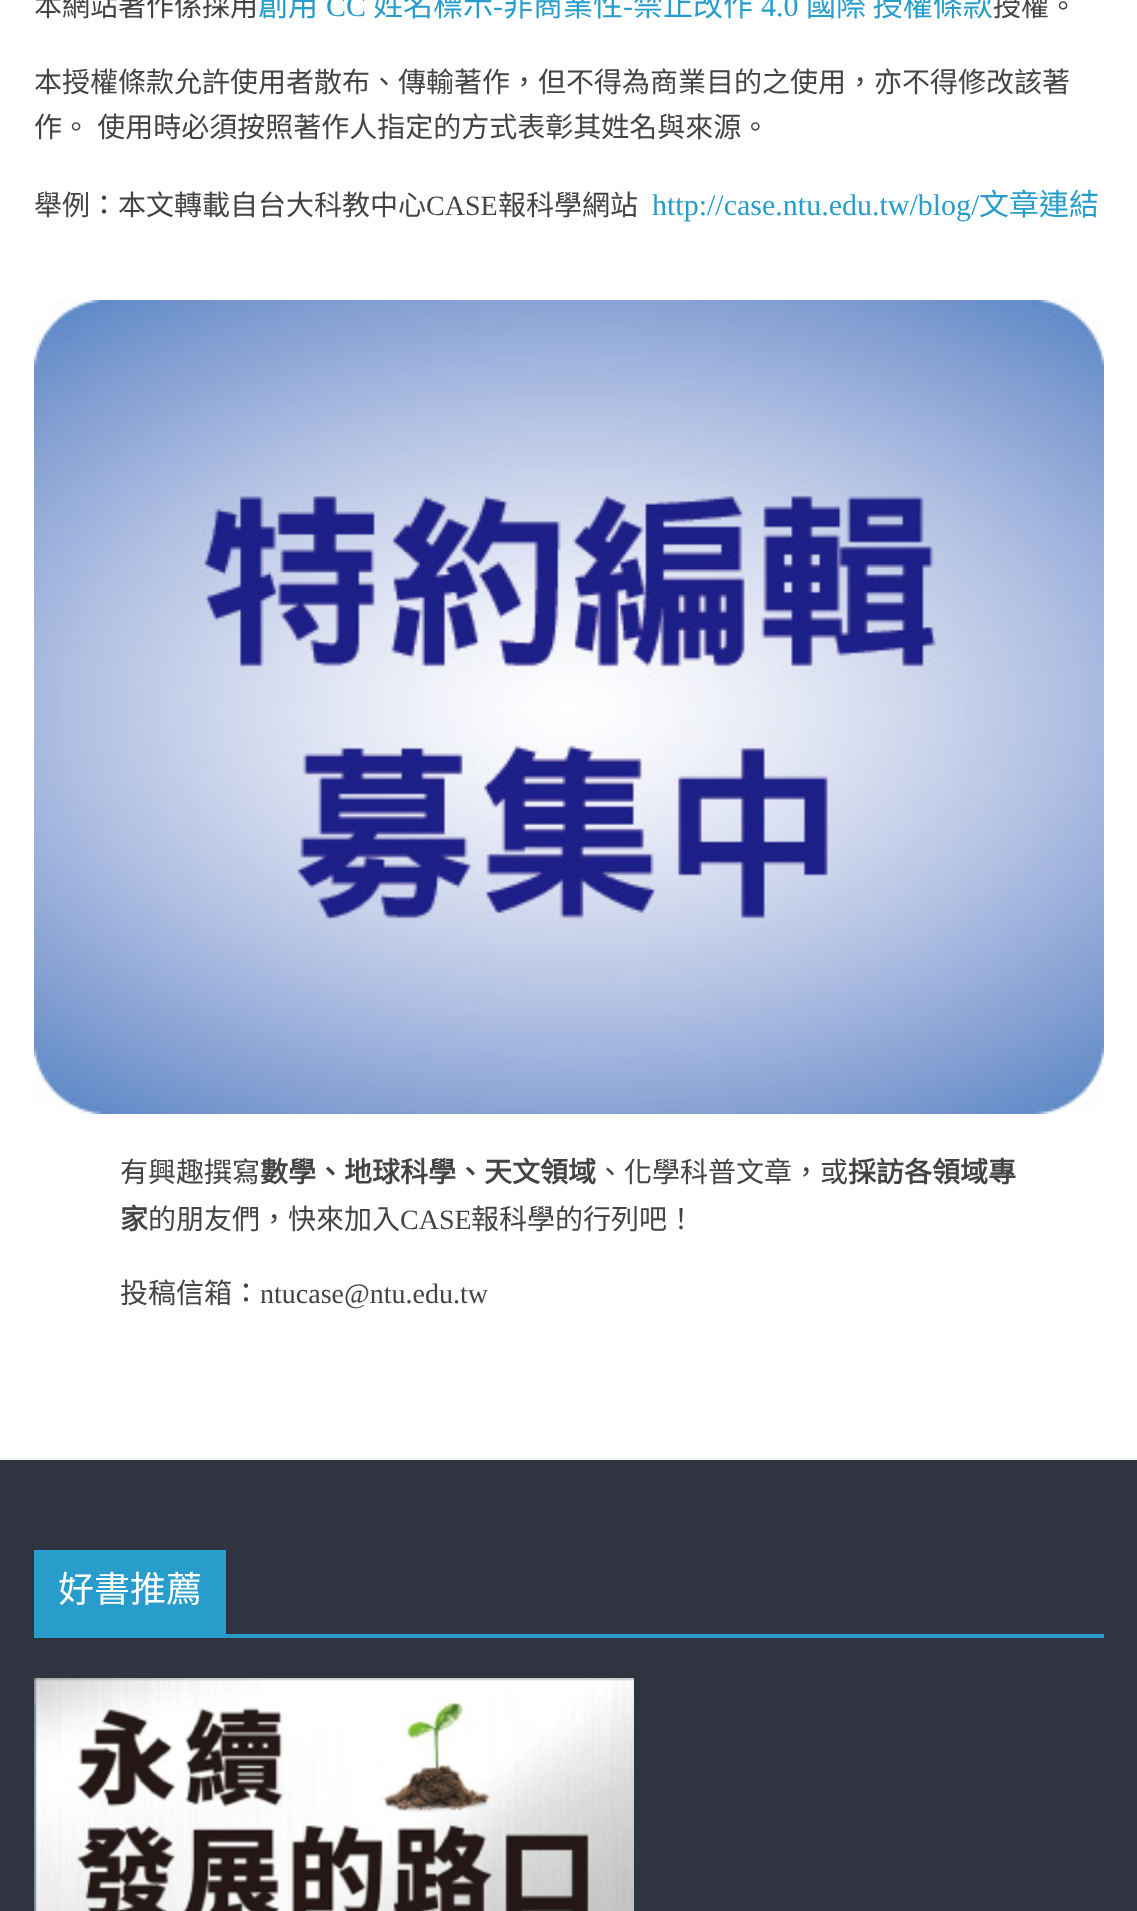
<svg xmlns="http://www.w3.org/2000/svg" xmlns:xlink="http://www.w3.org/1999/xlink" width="1137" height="1911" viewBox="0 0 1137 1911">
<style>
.cls-1{font:28px Noto Sans CJK TC;fill:#444444}
.cls-2{font:30px Noto Sans CJK TC;fill:#289dcc}
.cls-3{font:30px Liberation Serif;fill:#289dcc}
.cls-4{font:28px Liberation Serif;fill:#444444}
.cls-5{font:bold 28px Noto Sans CJK TC;fill:#444444}
.cls-6{font:36px Noto Sans CJK TC;fill:#ffffff}
</style>
<rect width="100%" height="100%" fill="#ffffff"/>
<image xlink:href="image0.png" x="34" y="300" width="1070" height="814"/>
<rect fill="#303440" x="0" y="1460" width="1137" height="451"/>
<rect fill="#f2f2f2" x="0" y="1458" width="1137" height="2"/>
<rect fill="#289dcc" x="34" y="1634" width="1070" height="4"/>
<rect fill="#289dcc" x="34" y="1550" width="192" height="84"/>
<image xlink:href="image1.png" x="34" y="1678" width="600" height="233"/>
<text class="cls-1" x="34" y="16">本網站著作係採用</text>
<text class="cls-2" x="258" y="16">創用</text>
<text class="cls-3" x="326" y="16">CC</text>
<text class="cls-2" x="373" y="16">姓名標示</text>
<text class="cls-3" x="493" y="16">-</text>
<text class="cls-2" x="503" y="16">非商業性</text>
<text class="cls-3" x="623" y="16">-</text>
<text class="cls-2" x="633" y="16">禁止改作</text>
<text class="cls-3" x="761" y="16">4.0</text>
<text class="cls-2" x="806" y="16">國際 授權條款</text>
<text class="cls-1" x="993" y="16">授權。</text>
<text class="cls-1"><tspan x="34" y="92">本授權條款允許使用者散布、傳輸著作，但不得為商業目的之使用，亦不得修改該著</tspan><tspan x="34" y="137" word-spacing="1">作。 使用時必須按照著作人指定的方式表彰其姓名與來源。</tspan></text>
<text class="cls-1" x="34" y="215">舉例：本文轉載自台大科教中心</text>
<text class="cls-4" x="426" y="215">CASE</text>
<text class="cls-1" x="498" y="215">報科學網站</text>
<text class="cls-3" x="652" y="215">http://case.ntu.edu.tw/blog/</text>
<text class="cls-2" x="979" y="215">文章連結</text>
<text class="cls-1" x="120" y="1182">有興趣撰寫</text>
<text class="cls-5" x="260" y="1182">數學、地球科學、天文領域</text>
<text class="cls-1" x="596" y="1182">、化學科普文章，或</text>
<text class="cls-5" x="848" y="1182">採訪各領域專</text>
<text class="cls-5" x="120" y="1229">家</text>
<text class="cls-1" x="148" y="1229">的朋友們，快來加入</text>
<text class="cls-4" x="400" y="1229">CASE</text>
<text class="cls-1" x="471" y="1229">報科學的行列吧！</text>
<text class="cls-1" x="120" y="1303">投稿信箱：</text>
<text class="cls-4" x="260" y="1303">ntucase@ntu.edu.tw</text>
<text class="cls-6" x="58" y="1602">好書推薦</text>
</svg>
